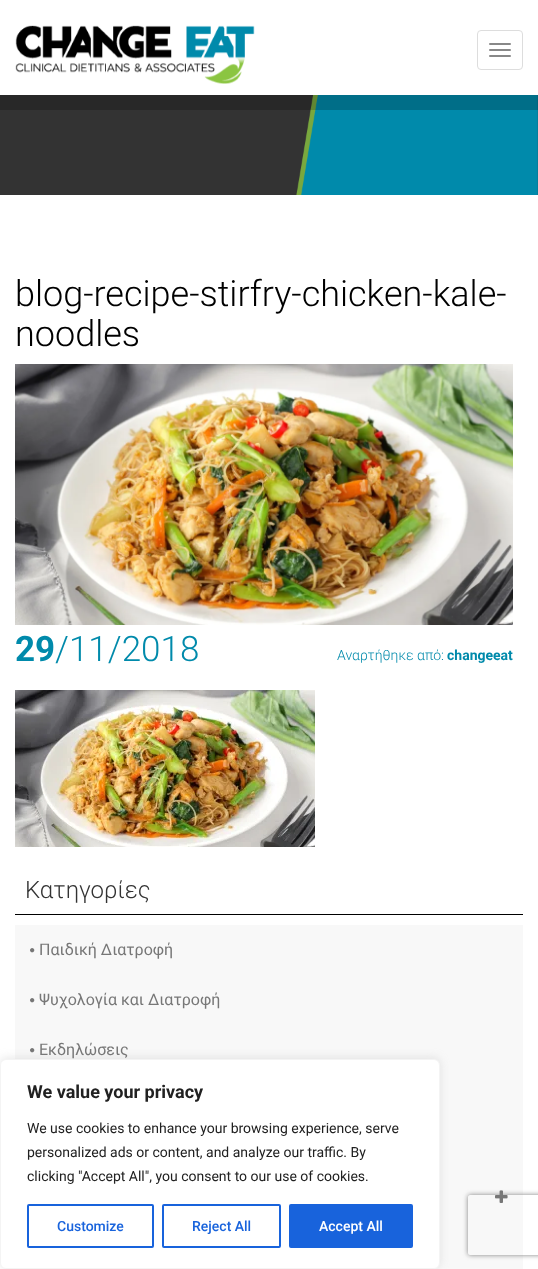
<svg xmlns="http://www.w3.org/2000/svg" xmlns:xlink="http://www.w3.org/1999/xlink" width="538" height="1269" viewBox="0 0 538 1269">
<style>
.cls-1{font:300 36px Roboto;fill:#000000}
.cls-2{font:bold 35px Roboto;fill:#008aab}
.cls-3{font:300 35px Roboto;fill:#008aab}
.cls-4{font:300 14px Roboto;fill:#008aab}
.cls-5{font:bold 14px Roboto;fill:#008aab}
.cls-6{font:300 24px Roboto;fill:#333333}
.cls-7{font:16px Roboto;fill:#777777}
.cls-8{font:bold 18px Roboto;fill:#212121}
.cls-9{font:14px Roboto;fill:#212121}
.cls-10{font:500 14px Roboto;fill:#1863dc}
.cls-11{font:500 14px Roboto;fill:#ffffff}
</style>
<defs>
<clipPath id="clip1"><path d="M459 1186H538V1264H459ZM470 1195H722C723 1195 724 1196 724 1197V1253C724 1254 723 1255 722 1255H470C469 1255 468 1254 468 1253V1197C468 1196 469 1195 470 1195Z" clip-rule="evenodd"/></clipPath>
</defs>
<rect width="100%" height="100%" fill="#ffffff"/>
<image xlink:href="image0.png" x="15" y="25" width="240" height="59"/>
<rect fill="none" stroke="#dddddd" x="477.5" y="30.5" width="45" height="39" rx="3.5"/>
<rect fill="#888888" x="489" y="43" width="22" height="2" rx="1"/>
<rect fill="#888888" x="489" y="49" width="22" height="2" rx="1"/>
<rect fill="#888888" x="489" y="55" width="22" height="2" rx="1"/>
<rect fill="#333333" x="0" y="95" width="538" height="100"/>
<image xlink:href="image1.png" x="296" y="95" width="242" height="100"/>
<rect fill="#000000" fill-opacity="0.2" x="0" y="95" width="538" height="15"/>
<image xlink:href="image2.png" x="15" y="364" width="498" height="261"/>
<image xlink:href="image3.png" x="15" y="690" width="300" height="157"/>
<rect fill="#000000" x="15" y="914" width="508" height="1"/>
<rect fill="#f8f8f8" x="15" y="925" width="508" height="344"/>
<image xlink:href="image4.png" x="30" y="948" width="5" height="5"/>
<image xlink:href="image4.png" x="30" y="998" width="5" height="5"/>
<image xlink:href="image4.png" x="30" y="1048" width="5" height="5"/>
<image xlink:href="image5.png" x="495" y="1190" width="13" height="13"/>
<rect fill="#acabab" fill-opacity="0.3" filter="blur(5px)" x="0" y="1058" width="440" height="210" rx="6"/>
<rect fill="#ffffff" stroke="#f4f4f4" x="0.5" y="1059.5" width="439" height="209" rx="5.5"/>
<rect fill="none" stroke="#1863dc" stroke-width="2" x="28" y="1205" width="125" height="42" rx="1"/>
<rect fill="none" stroke="#1863dc" stroke-width="2" x="163" y="1205" width="117" height="42" rx="1"/>
<rect fill="#1863dc" stroke="#1863dc" stroke-width="2" x="290" y="1205" width="122" height="42" rx="1"/>
<g clip-path="url(#clip1)">
<rect fill="#808080" filter="blur(2.5px)" x="468" y="1195" width="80" height="60" rx="2"/>
</g>
<text class="cls-1"><tspan x="15" y="306">blog-recipe-stirfry-chicken-kale-</tspan><tspan x="15" y="346">noodles</tspan></text>
<text class="cls-2" x="15" y="661">29</text>
<text class="cls-3" x="55" y="661">/11/2018</text>
<text class="cls-4" x="337" y="660">Αναρτήθηκε από:</text>
<text class="cls-5" x="447" y="660">changeeat</text>
<text class="cls-6" x="25" y="898">Κατηγορίες</text>
<text class="cls-7" x="39" y="955">Παιδική Διατροφή</text>
<text class="cls-7" x="39" y="1005">Ψυχολογία και Διατροφή</text>
<text class="cls-7" x="39" y="1055">Εκδηλώσεις</text>
<text class="cls-8" x="27" y="1098">We value your privacy</text>
<text class="cls-9"><tspan x="27" y="1133">We use cookies to enhance your browsing experience, serve</tspan><tspan x="27" y="1157">personalized ads or content, and analyze our traffic. By</tspan><tspan x="27" y="1181">clicking "Accept All", you consent to our use of cookies.</tspan></text>
<text class="cls-10" x="57" y="1231">Customize</text>
<text class="cls-10" x="192" y="1231">Reject All</text>
<text class="cls-11" x="319" y="1231">Accept All</text>
</svg>
